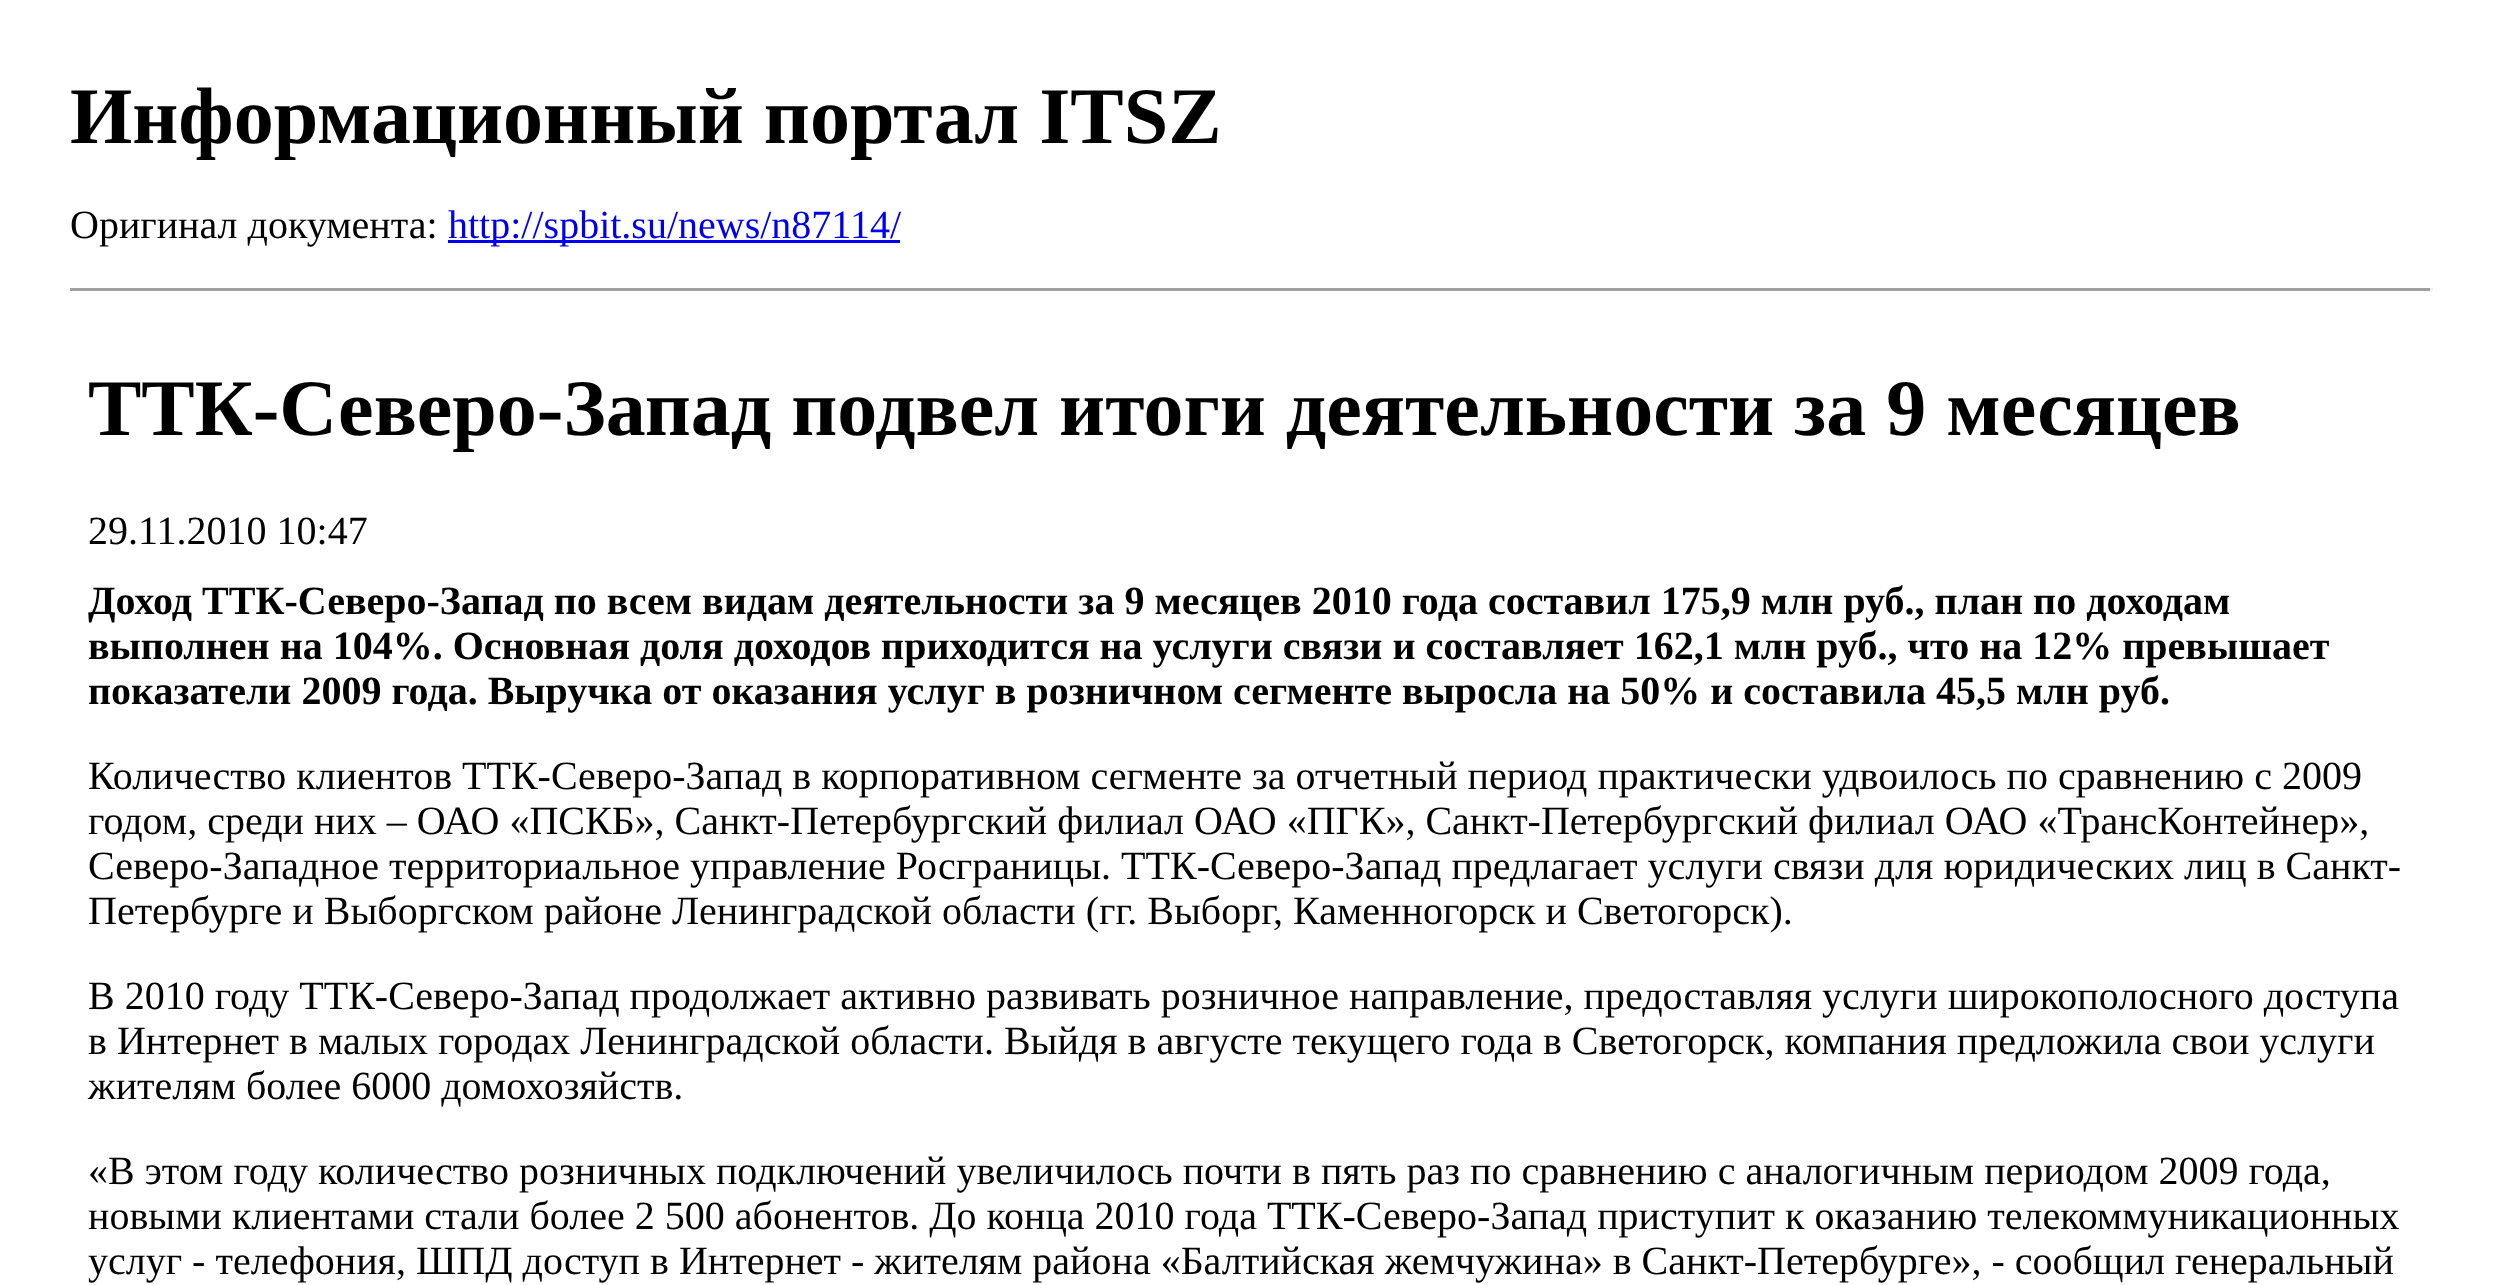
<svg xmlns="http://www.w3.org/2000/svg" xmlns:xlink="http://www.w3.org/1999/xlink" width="2497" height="1285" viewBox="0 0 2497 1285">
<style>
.cls-1{font:bold 80px Liberation Serif;fill:#000000}
.cls-2{font:40px Liberation Serif;fill:#000000}
.cls-3{font:40px Liberation Serif;fill:#0000ee}
.cls-4{font:bold 40px Liberation Serif;fill:#000000}
</style>
<rect width="100%" height="100%" fill="#ffffff"/>
<rect fill="#0000ee" x="448" y="240" width="452" height="3"/>
<rect fill="#9f9f9f" x="70" y="288" width="2363" height="3"/>
<rect fill="#eeeeee" x="2430" y="288" width="3" height="3"/>
<text class="cls-1" x="70" y="143">Информационный портал ITSZ</text>
<text class="cls-2" x="70" y="238">Оригинал документа:</text>
<text class="cls-3" x="448" y="238">http://spbit.su/news/n87114/</text>
<text class="cls-1" x="88" y="435">ТТК-Северо-Запад подвел итоги деятельности за 9 месяцев</text>
<text class="cls-2" x="88" y="544">29.11.2010 10:47</text>
<text class="cls-4"><tspan x="88" y="614">Доход ТТК-Северо-Запад по всем видам деятельности за 9 месяцев 2010 года составил 175,9 млн руб., план по доходам</tspan><tspan x="88" y="659">выполнен на 104%. Основная доля доходов приходится на услуги связи и составляет 162,1 млн руб., что на 12% превышает</tspan><tspan x="88" y="704">показатели 2009 года. Выручка от оказания услуг в розничном сегменте выросла на 50% и составила 45,5 млн руб.</tspan></text>
<text class="cls-2"><tspan x="88" y="789">Количество клиентов ТТК-Северо-Запад в корпоративном сегменте за отчетный период практически удвоилось по сравнению с 2009</tspan><tspan x="88" y="834">годом, среди них – ОАО «ПСКБ», Санкт-Петербургский филиал ОАО «ПГК», Санкт-Петербургский филиал ОАО «ТрансКонтейнер»,</tspan><tspan x="88" y="879">Северо-Западное территориальное управление Росграницы. ТТК-Северо-Запад предлагает услуги связи для юридических лиц в Санкт-</tspan><tspan x="88" y="924">Петербурге и Выборгском районе Ленинградской области (гг. Выборг, Каменногорск и Светогорск).</tspan></text>
<text class="cls-2"><tspan x="88" y="1009">В 2010 году ТТК-Северо-Запад продолжает активно развивать розничное направление, предоставляя услуги широкополосного доступа</tspan><tspan x="88" y="1054">в Интернет в малых городах Ленинградской области. Выйдя в августе текущего года в Светогорск, компания предложила свои услуги</tspan><tspan x="88" y="1099">жителям более 6000 домохозяйств.</tspan></text>
<text class="cls-2"><tspan x="88" y="1184">«В этом году количество розничных подключений увеличилось почти в пять раз по сравнению с аналогичным периодом 2009 года,</tspan><tspan x="88" y="1229">новыми клиентами стали более 2 500 абонентов. До конца 2010 года ТТК-Северо-Запад приступит к оказанию телекоммуникационных</tspan><tspan x="88" y="1274">услуг - телефония, ШПД доступ в Интернет - жителям района «Балтийская жемчужина» в Санкт-Петербурге», - сообщил генеральный</tspan></text>
</svg>
